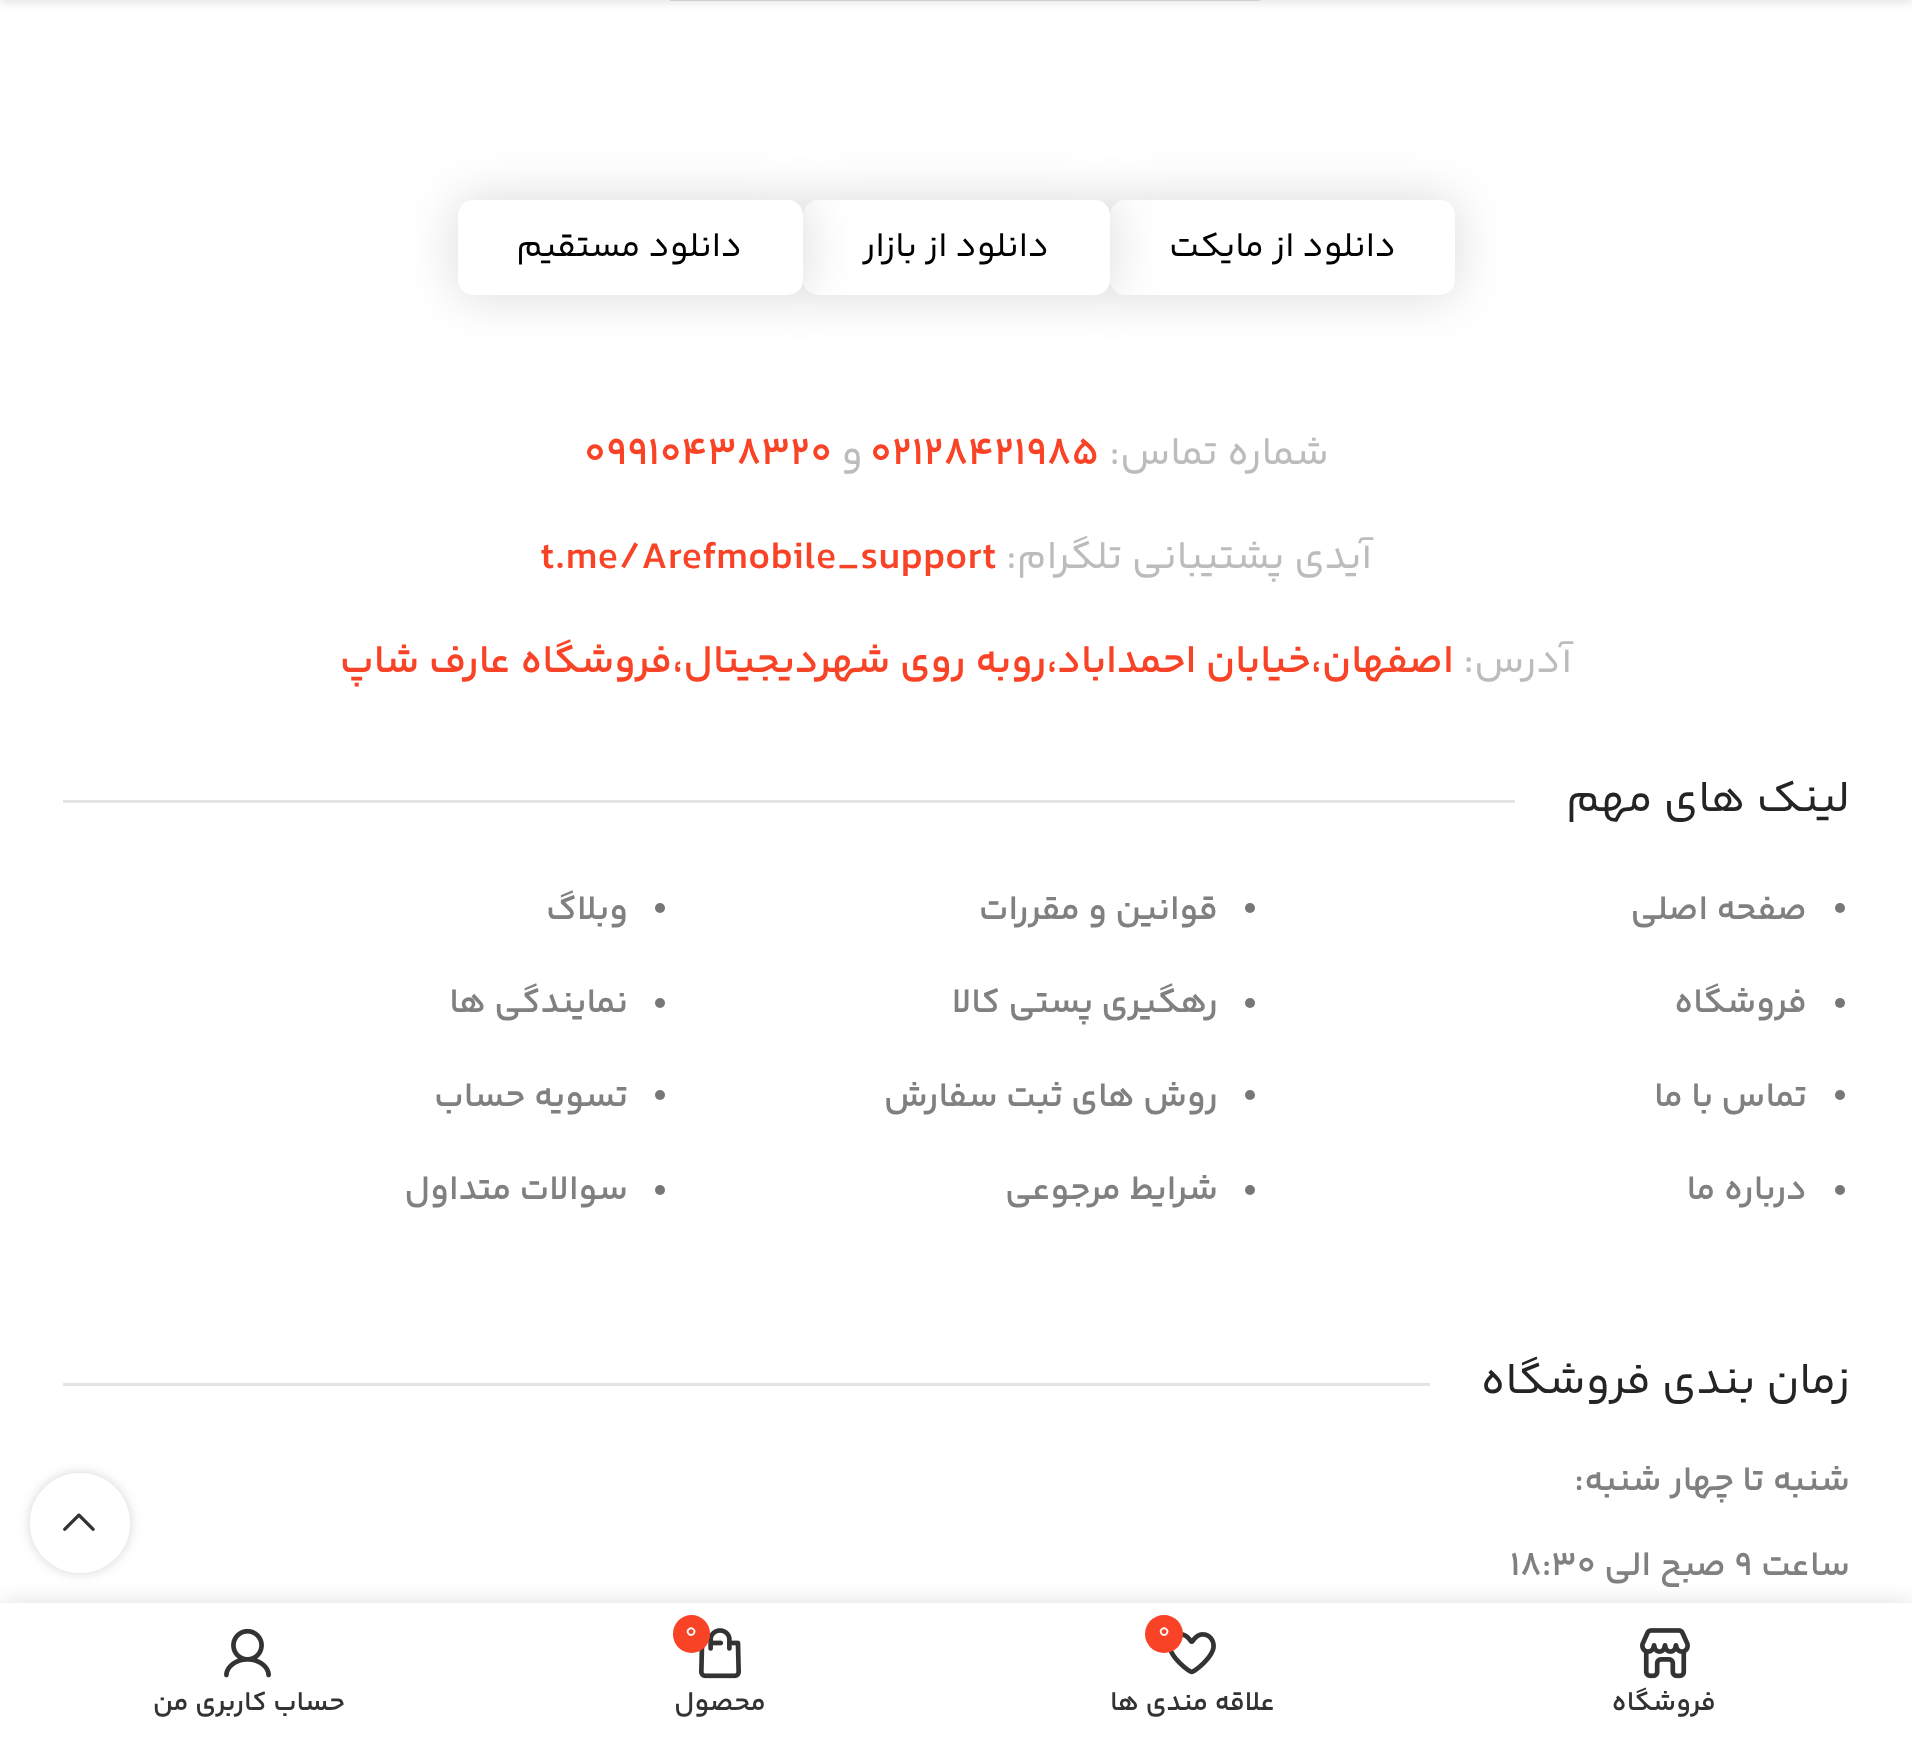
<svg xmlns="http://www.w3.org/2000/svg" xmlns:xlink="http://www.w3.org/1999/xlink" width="1912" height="1738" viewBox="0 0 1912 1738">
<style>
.cls-1{font:35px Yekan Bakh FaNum;direction:rtl;fill:#020101}
.cls-2{font:40px Yekan Bakh FaNum;direction:rtl;fill:#bcbcbc}
.cls-3{font:600 40px Yekan Bakh FaNum;fill:#f94327}
.cls-4{font:600 40px Yekan Bakh FaNum;direction:rtl;fill:#f94327}
.cls-5{font:45px Yekan Bakh FaNum;direction:rtl;fill:#242424}
.cls-6{font:600 35px Yekan Bakh FaNum;direction:rtl;fill:#808080}
.cls-7{font:600 35px Yekan Bakh FaNum;fill:#808080}
.cls-8{font:600 27.5px Yekan Bakh FaNum;direction:rtl;fill:#333333}
.cls-9{font:22px Yekan Bakh FaNum;fill:#ffffff}
</style>
<defs>
<clipPath id="clip1"><path d="M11 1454H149V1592H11ZM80 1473C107.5 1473 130 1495.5 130 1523C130 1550.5 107.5 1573 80 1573C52.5 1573 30 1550.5 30 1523C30 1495.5 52.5 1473 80 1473Z" clip-rule="evenodd"/></clipPath>
</defs>
<rect width="100%" height="100%" fill="#ffffff"/>
<rect fill="#e0e0e0" x="670" y="0" width="590" height="1"/>
<rect fill="#000000" fill-opacity="0.1" filter="blur(4px)" x="0" y="-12" width="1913" height="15"/>
<rect fill="#000000" fill-opacity="0.15" filter="blur(25px)" x="1110" y="200" width="345" height="95" rx="15"/>
<rect fill="#ffffff" x="1110" y="200" width="345" height="95" rx="15"/>
<rect fill="#000000" fill-opacity="0.15" filter="blur(25px)" x="803" y="200" width="307" height="95" rx="15"/>
<rect fill="#ffffff" x="803" y="200" width="307" height="95" rx="15"/>
<rect fill="#000000" fill-opacity="0.15" filter="blur(25px)" x="458" y="200" width="345" height="95" rx="15"/>
<rect fill="#ffffff" x="458" y="200" width="345" height="95" rx="15"/>
<rect fill="#e4e4e4" x="63" y="800" width="1452" height="3"/>
<circle fill="#777777" cx="1840" cy="908" r="5"/>
<circle fill="#777777" cx="1840" cy="1003" r="5"/>
<circle fill="#777777" cx="1840" cy="1095" r="5"/>
<circle fill="#777777" cx="1840" cy="1190" r="5"/>
<circle fill="#777777" cx="1250" cy="908" r="5"/>
<circle fill="#777777" cx="1250" cy="1003" r="5"/>
<circle fill="#777777" cx="1250" cy="1095" r="5"/>
<circle fill="#777777" cx="1250" cy="1190" r="5"/>
<circle fill="#777777" cx="660" cy="908" r="5"/>
<circle fill="#777777" cx="660" cy="1003" r="5"/>
<circle fill="#777777" cx="660" cy="1095" r="5"/>
<circle fill="#777777" cx="660" cy="1190" r="5"/>
<rect fill="#e4e4e4" x="63" y="1383" width="1367" height="3"/>
<g clip-path="url(#clip1)">
<rect fill="#000000" fill-opacity="0.17" filter="blur(6px)" x="30" y="1473" width="100" height="100" rx="50"/>
</g>
<circle fill="#ffffff" fill-opacity="0.9" cx="80" cy="1523" r="50"/>
<image xlink:href="image0.png" x="63" y="1513" width="32" height="18"/>
<rect fill="#000000" fill-opacity="0.12" filter="blur(11px)" x="0" y="1603" width="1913" height="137"/>
<rect fill="#ffffff" x="0" y="1603" width="1912" height="135"/>
<image xlink:href="image1.png" x="1640" y="1628" width="50" height="51"/>
<image xlink:href="image2.png" x="1169" y="1632" width="47" height="43"/>
<circle fill="#f94327" cx="1164" cy="1634" r="19"/>
<image xlink:href="image3.png" x="699" y="1628" width="42" height="51"/>
<rect fill="#f94327" x="673" y="1615" width="37" height="38" rx="18.5"/>
<image xlink:href="image4.png" x="224" y="1628" width="47" height="50"/>
<text class="cls-1" x="1396" y="256">دانلود از مایکت</text>
<text class="cls-1" x="1049" y="256">دانلود از بازار</text>
<text class="cls-1" x="742" y="256">دانلود مستقیم</text>
<text class="cls-2" x="1329" y="464">شماره تماس:</text>
<text class="cls-3" x="870" y="464">02128421985</text>
<text class="cls-2" x="863" y="464">و</text>
<text class="cls-3" x="584" y="464">09910438320</text>
<text class="cls-2" x="1372" y="568">آیدی پشتیبانی تلگرام:</text>
<text class="cls-3" x="540" y="568">t.me/Arefmobile_support</text>
<text class="cls-2" x="1572" y="672">آدرس:</text>
<text class="cls-4" x="1454" y="672">اصفهان،خیابان احمداباد،روبه روی شهردیجیتال،فروشگاه عارف شاپ</text>
<text class="cls-5" x="1850" y="811">لینک های مهم</text>
<text class="cls-6" x="1807" y="919">صفحه اصلی</text>
<text class="cls-6" x="1807" y="1012">فروشگاه</text>
<text class="cls-6" x="1807" y="1106">تماس با ما</text>
<text class="cls-6" x="1807" y="1199">درباره ما</text>
<text class="cls-6" x="1218" y="919">قوانین و مقررات</text>
<text class="cls-6" x="1218" y="1012">رهگیری پستی کالا</text>
<text class="cls-6" x="1218" y="1106">روش های ثبت سفارش</text>
<text class="cls-6" x="1218" y="1199">شرایط مرجوعی</text>
<text class="cls-6" x="628" y="919">وبلاگ</text>
<text class="cls-6" x="628" y="1012">نمایندگی ها</text>
<text class="cls-6" x="628" y="1106">تسویه حساب</text>
<text class="cls-6" x="628" y="1199">سوالات متداول</text>
<text class="cls-5" x="1850" y="1393">زمان بندی فروشگاه</text>
<text class="cls-6" x="1850" y="1490">شنبه تا چهار شنبه:</text>
<text class="cls-6" x="1850" y="1575">ساعت</text>
<text class="cls-7" x="1734" y="1575">9</text>
<text class="cls-6" x="1726" y="1575">صبح الی</text>
<text class="cls-7" x="1510" y="1575">18:30</text>
<text class="cls-8" x="1716" y="1710">فروشگاه</text>
<text class="cls-9" x="1158" y="1638">0</text>
<text class="cls-8" x="1275" y="1710">علاقه مندی ها</text>
<text class="cls-9" x="685" y="1638">0</text>
<text class="cls-8" x="766" y="1710">محصول</text>
<text class="cls-8" x="345" y="1710">حساب کاربری من</text>
</svg>
